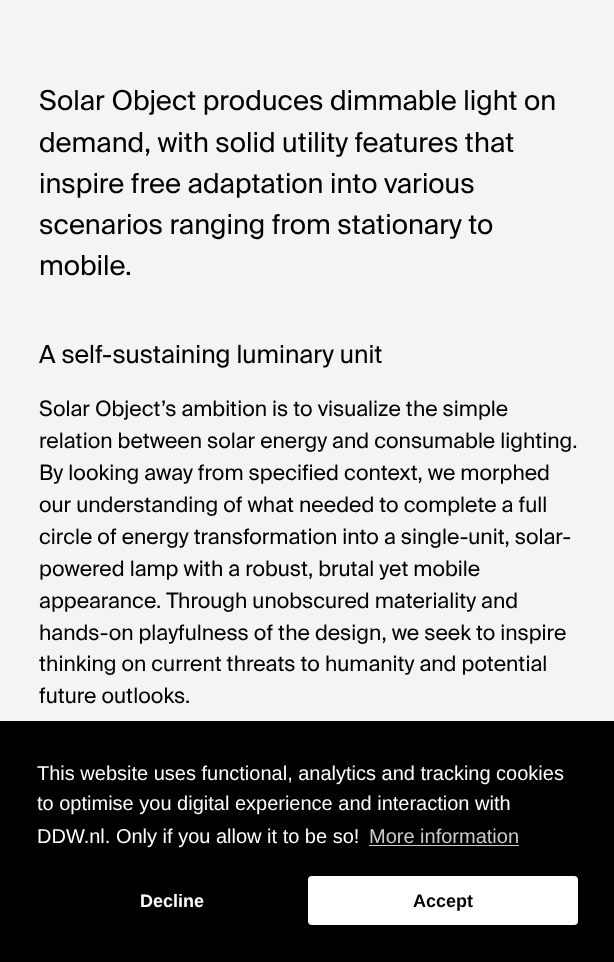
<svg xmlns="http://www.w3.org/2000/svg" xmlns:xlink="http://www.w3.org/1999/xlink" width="614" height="962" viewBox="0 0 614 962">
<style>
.cls-1{font:27.5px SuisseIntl;fill:#000000}
.cls-2{font:25px SuisseIntl;fill:#000000}
.cls-3{font:21.25px SuisseIntl;fill:#000000}
.cls-4{font:20px Liberation Sans;fill:#ffffff}
.cls-5{font:20px Liberation Sans;fill:#cccccc}
.cls-6{font:bold 18px Liberation Sans;fill:#ffffff}
.cls-7{font:bold 18px Liberation Sans;fill:#000000}
</style>
<rect width="100%" height="100%" fill="#f4f4f4"/>
<rect fill="#000000" x="0" y="721" width="614" height="241"/>
<rect fill="#cccccc" x="369" y="845" width="150" height="1"/>
<rect fill="#ffffff" x="308" y="876" width="270" height="49" rx="4"/>
<text class="cls-1"><tspan x="39" y="110">Solar Object produces dimmable light on</tspan><tspan x="39" y="152">demand, with solid utility features that</tspan><tspan x="39" y="193">inspire free adaptation into various</tspan><tspan x="39" y="234">scenarios ranging from stationary to</tspan><tspan x="39" y="275">mobile.</tspan></text>
<text class="cls-2" x="39" y="363">A self-sustaining luminary unit</text>
<text class="cls-3"><tspan x="39" y="416">Solar Object’s ambition is to visualize the simple</tspan><tspan x="39" y="448">relation between solar energy and consumable lighting.</tspan><tspan x="39" y="480">By looking away from specified context, we morphed</tspan><tspan x="39" y="512">our understanding of what needed to complete a full</tspan><tspan x="39" y="544">circle of energy transformation into a single-unit, solar-</tspan><tspan x="39" y="576">powered lamp with a robust, brutal yet mobile</tspan><tspan x="39" y="608">appearance. Through unobscured materiality and</tspan><tspan x="39" y="640">hands-on playfulness of the design, we seek to inspire</tspan><tspan x="39" y="671">thinking on current threats to humanity and potential</tspan><tspan x="39" y="703">future outlooks.</tspan></text>
<text class="cls-4"><tspan x="37" y="780">This website uses functional, analytics and tracking cookies</tspan><tspan x="37" y="810">to optimise you digital experience and interaction with</tspan><tspan x="37" y="843">DDW.nl. Only if you allow it to be so!</tspan></text>
<text class="cls-5" x="369" y="843">More information</text>
<text class="cls-6" x="140" y="907">Decline</text>
<text class="cls-7" x="413" y="907">Accept</text>
</svg>
